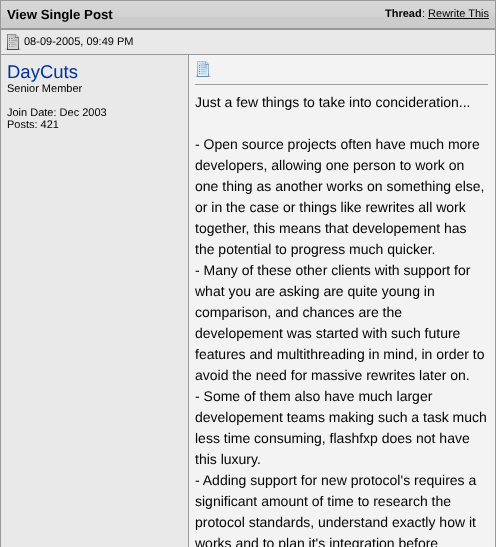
<svg xmlns="http://www.w3.org/2000/svg" xmlns:xlink="http://www.w3.org/1999/xlink" width="496" height="547" viewBox="0 0 496 547">
<style>
.cls-1{font:bold 13.25px Liberation Sans;fill:#000000}
.cls-2{font:bold 11px Liberation Sans;fill:#000000}
.cls-3{font:11px Liberation Sans;fill:#000000}
.cls-4{font:18.5px Liberation Sans;fill:#003399}
.cls-5{font:14px Liberation Sans;fill:#000000}
</style>
<rect width="100%" height="100%" fill="#999999"/>
<rect fill="#cccccc" x="1" y="17" width="494" height="11"/>
<image xlink:href="image0.png" x="1" y="1" width="494" height="16"/>
<rect fill="#000000" x="428" y="18" width="61" height="1"/>
<rect fill="#e9e9e9" x="1" y="30" width="494" height="24"/>
<image xlink:href="image1.png" x="5" y="34" width="16" height="16"/>
<rect fill="#e9e9e9" x="1" y="55" width="187" height="492"/>
<rect fill="#f3f3f3" x="189" y="55" width="306" height="492"/>
<image xlink:href="image2.png" x="195" y="61" width="16" height="16"/>
<rect fill="#9f9f9f" x="195" y="84" width="294" height="1"/>
<rect fill="#eeeeee" x="488" y="84" width="1" height="1"/>
<text class="cls-1" x="7" y="19">View Single Post</text>
<text class="cls-2" x="385" y="17">Thread</text>
<text class="cls-3" x="422" y="17">: Rewrite This</text>
<text class="cls-3" x="24" y="45">08-09-2005, 09:49 PM</text>
<text class="cls-4" x="7" y="78">DayCuts</text>
<text class="cls-3" x="7" y="92">Senior Member</text>
<text class="cls-3"><tspan x="7" y="116">Join Date: Dec 2003</tspan><tspan x="7" y="128">Posts: 421</tspan></text>
<text class="cls-5" x="195" y="107">Just a few things to take into concideration...</text>
<text class="cls-5"><tspan x="195" y="149">- Open source projects often have much more</tspan><tspan x="195" y="170">developers, allowing one person to work on</tspan><tspan x="195" y="191">one thing as another works on something else,</tspan><tspan x="195" y="212">or in the case or things like rewrites all work</tspan><tspan x="195" y="233">together, this means that developement has</tspan><tspan x="195" y="254">the potential to progress much quicker.</tspan><tspan x="195" y="275">- Many of these other clients with support for</tspan><tspan x="195" y="296">what you are asking are quite young in</tspan><tspan x="195" y="317">comparison, and chances are the</tspan><tspan x="195" y="338">developement was started with such future</tspan><tspan x="195" y="359">features and multithreading in mind, in order to</tspan><tspan x="195" y="380">avoid the need for massive rewrites later on.</tspan><tspan x="195" y="401">- Some of them also have much larger</tspan><tspan x="195" y="422">developement teams making such a task much</tspan><tspan x="195" y="443">less time consuming, flashfxp does not have</tspan><tspan x="195" y="464">this luxury.</tspan><tspan x="195" y="485">- Adding support for new protocol's requires a</tspan><tspan x="195" y="506">significant amount of time to research the</tspan><tspan x="195" y="527">protocol standards, understand exactly how it</tspan><tspan x="195" y="548">works and to plan it's integration before</tspan></text>
</svg>
